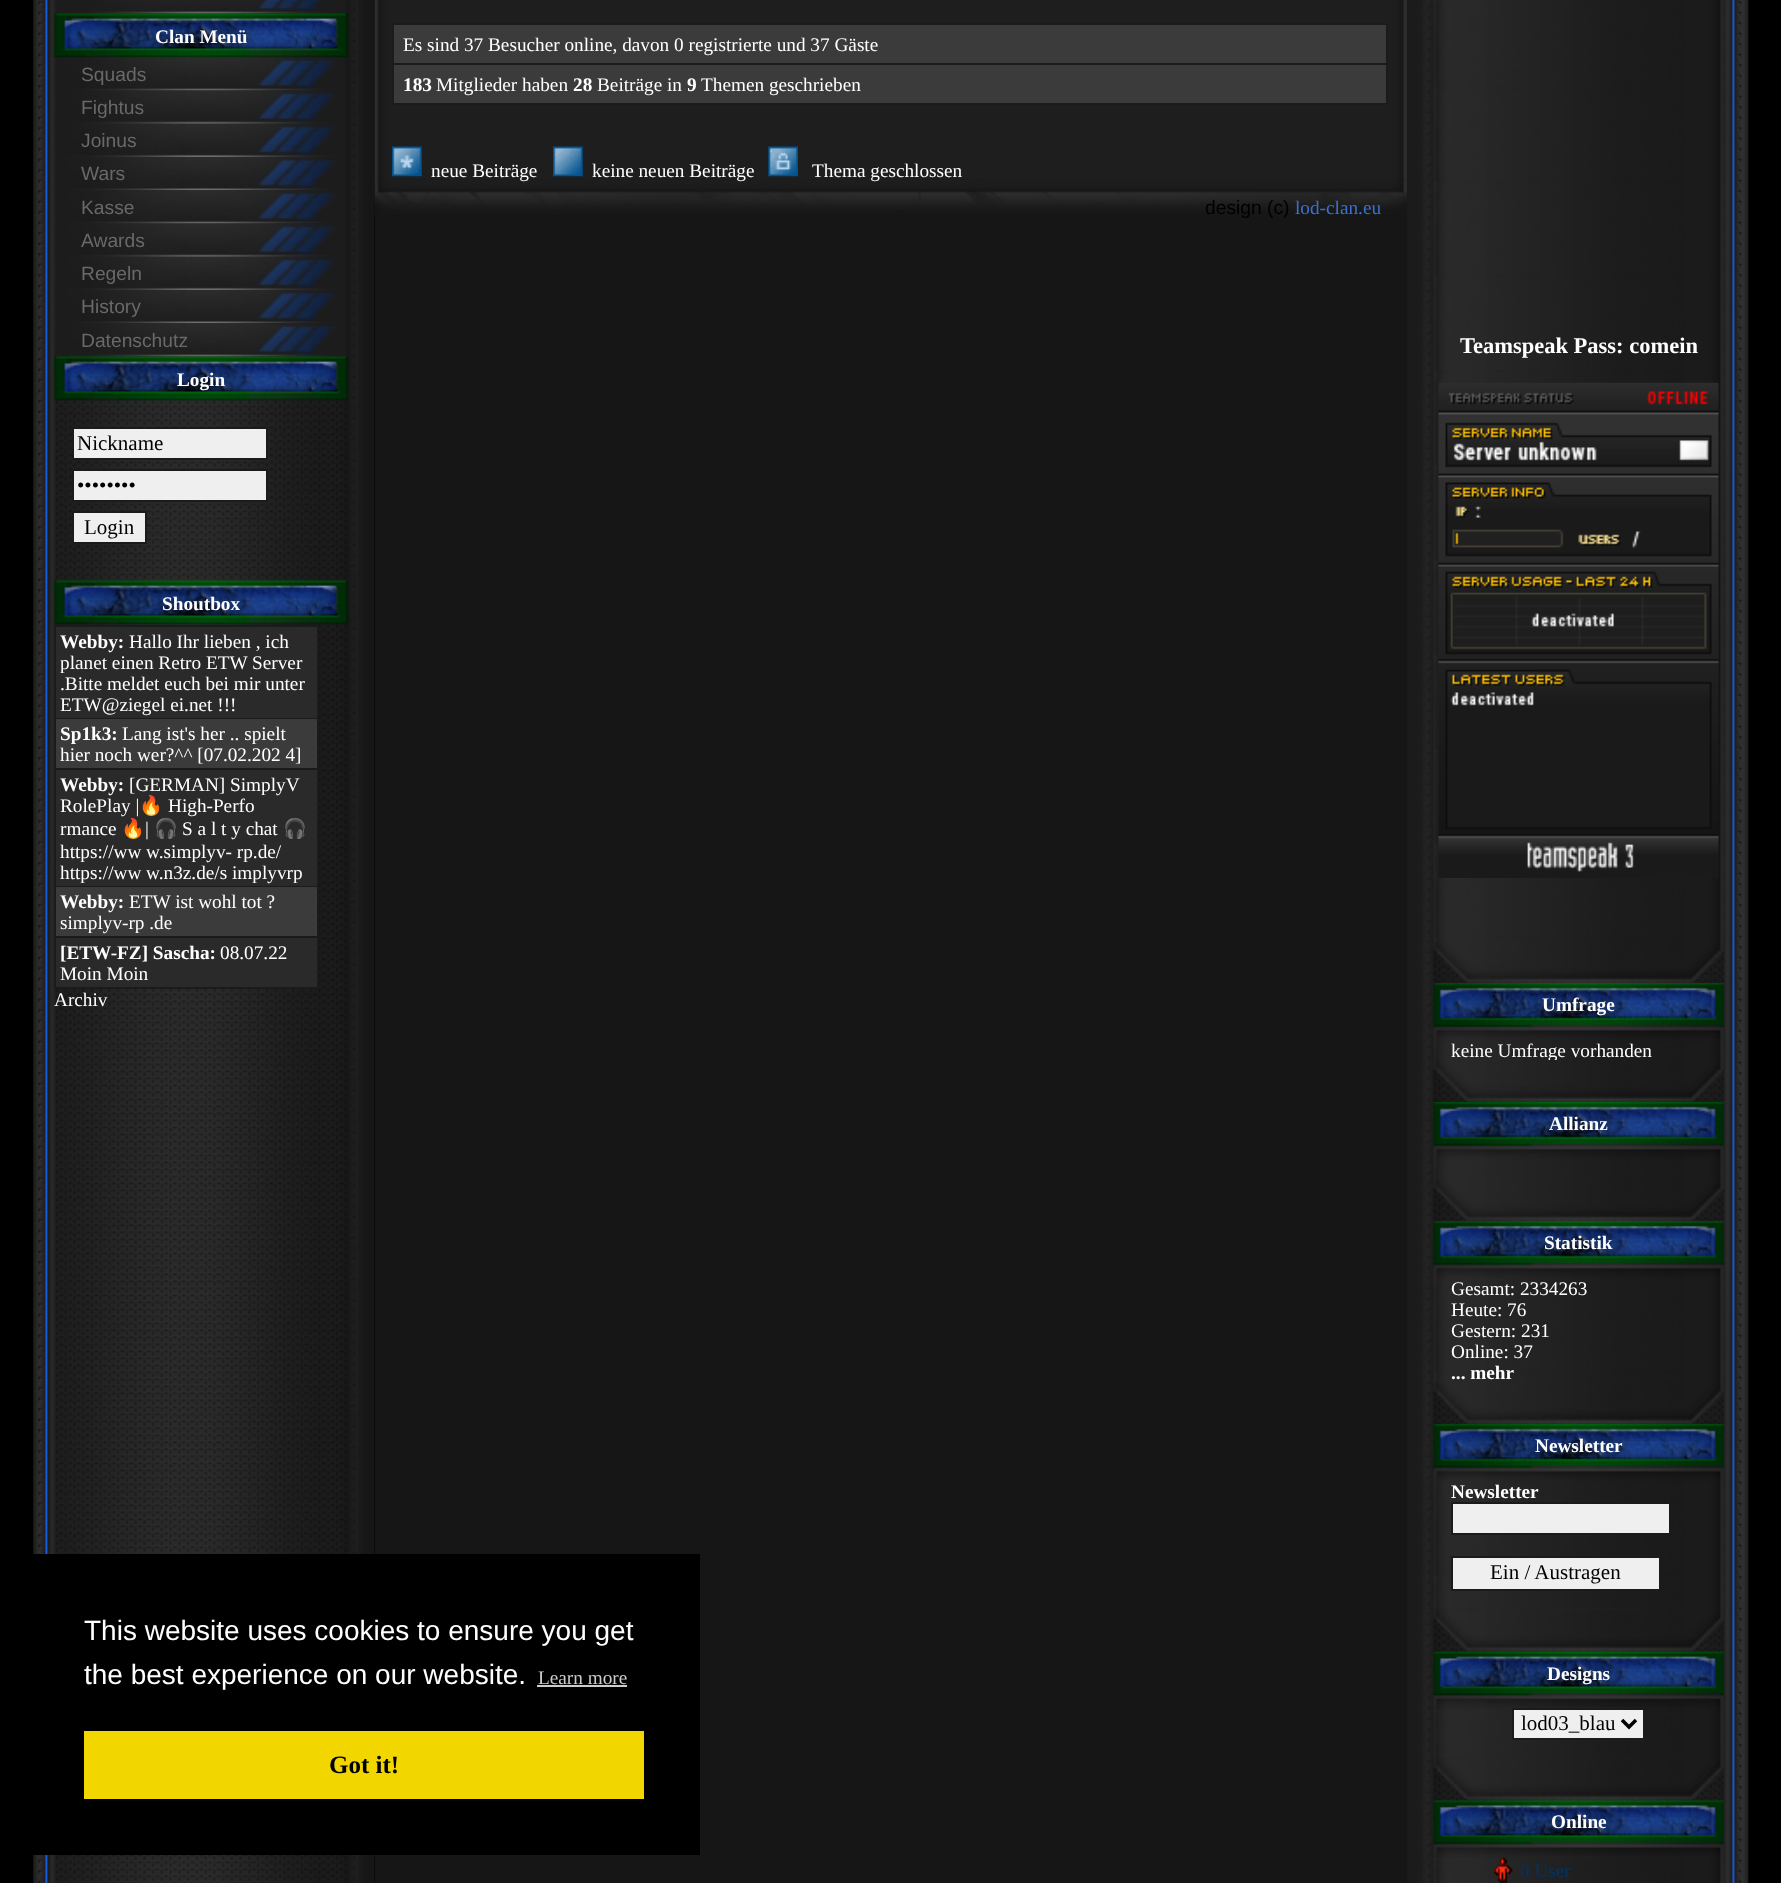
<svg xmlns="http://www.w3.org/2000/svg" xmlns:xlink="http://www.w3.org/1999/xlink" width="1781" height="1883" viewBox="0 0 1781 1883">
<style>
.cls-1{font:bold 19.25px Liberation Serif;fill:#ffffff}
.cls-2{font:19.25px Liberation Sans;fill:#696969}
.cls-3{font:21px Liberation Serif;fill:#000000}
.cls-4{font:19.25px Liberation Serif;fill:#ffffff}
.cls-5{font:19.25px Noto Color Emoji;fill:#ffffff}
.cls-6{font:19.25px Liberation Sans;fill:#000000}
.cls-7{font:19.25px Liberation Serif;fill:#3b72d1}
.cls-8{font:bold 22.5px Liberation Serif;fill:#ffffff}
.cls-9{font:19.25px Liberation Serif;fill:#003366}
.cls-10{font:28px Liberation Sans;fill:#ffffff}
.cls-11{font:19.25px Liberation Serif;fill:#cccccc}
.cls-12{font:bold 25px Liberation Serif;fill:#000000}
</style>
<rect width="100%" height="100%" fill="#000000"/>
<image xlink:href="image0.png" x="33" y="0" width="342" height="1883"/>
<image xlink:href="image1.png" x="56" y="0" width="291" height="14"/>
<image xlink:href="image2.png" x="54" y="13" width="295" height="45"/>
<image xlink:href="image3.png" x="55" y="57" width="293" height="34"/>
<image xlink:href="image4.png" x="56" y="90" width="291" height="34"/>
<image xlink:href="image5.png" x="56" y="123" width="291" height="34"/>
<image xlink:href="image6.png" x="56" y="157" width="291" height="34"/>
<image xlink:href="image7.png" x="56" y="190" width="291" height="34"/>
<image xlink:href="image8.png" x="56" y="223" width="291" height="34"/>
<image xlink:href="image9.png" x="56" y="256" width="291" height="34"/>
<image xlink:href="image10.png" x="56" y="290" width="291" height="34"/>
<image xlink:href="image11.png" x="56" y="323" width="291" height="34"/>
<image xlink:href="image12.png" x="54" y="356" width="295" height="45"/>
<rect fill="#efefef" stroke="#1b1b1b" stroke-width="2" x="73" y="428" width="194" height="31"/>
<rect fill="#efefef" stroke="#1b1b1b" stroke-width="2" x="73" y="470" width="194" height="31"/>
<rect fill="#efefef" stroke="#1b1b1b" stroke-width="2" x="73" y="512" width="73" height="31"/>
<image xlink:href="image13.png" x="54" y="580" width="295" height="45"/>
<rect fill="#1b1b1b" x="54" y="625" width="265" height="364"/>
<rect fill="#2a2a2a" x="56" y="627" width="261" height="91"/>
<rect fill="#3b3b3b" x="56" y="719" width="261" height="49"/>
<rect fill="#2a2a2a" x="56" y="770" width="261" height="116"/>
<rect fill="#3b3b3b" x="56" y="887" width="261" height="49"/>
<rect fill="#2a2a2a" x="56" y="938" width="261" height="49"/>
<rect fill="#161616" x="375" y="179" width="1032" height="1704"/>
<image xlink:href="image14.png" x="374" y="0" width="1033" height="180"/>
<rect fill="#1b1b1b" x="392" y="23" width="996" height="82"/>
<rect fill="#3b3b3b" x="394" y="25" width="992" height="38"/>
<rect fill="#3b3b3b" x="394" y="65" width="992" height="38"/>
<image xlink:href="image15.png" x="392" y="146" width="30" height="31"/>
<image xlink:href="image16.png" x="553" y="146" width="30" height="31"/>
<image xlink:href="image17.png" x="768" y="146" width="30" height="31"/>
<image xlink:href="image18.png" x="374" y="180" width="1033" height="36"/>
<image xlink:href="image19.png" x="1407" y="0" width="342" height="1883"/>
<image xlink:href="image20.png" x="1433" y="0" width="291" height="941"/>
<image xlink:href="image21.png" x="1438" y="382" width="281" height="496"/>
<image xlink:href="image22.png" x="1433" y="941" width="291" height="42"/>
<image xlink:href="image23.png" x="1433" y="983" width="291" height="56"/>
<image xlink:href="image24.png" x="1433" y="1039" width="291" height="21"/>
<image xlink:href="image26.png" x="1433" y="1102" width="291" height="56"/>
<image xlink:href="image27.png" x="1433" y="1158" width="291" height="21"/>
<image xlink:href="image28.png" x="1433" y="1179" width="291" height="42"/>
<image xlink:href="image29.png" x="1433" y="1221" width="291" height="56"/>
<image xlink:href="image30.png" x="1433" y="1277" width="291" height="105"/>
<image xlink:href="image31.png" x="1433" y="1382" width="291" height="42"/>
<image xlink:href="image32.png" x="1433" y="1424" width="291" height="56"/>
<image xlink:href="image33.png" x="1433" y="1480" width="291" height="130"/>
<rect fill="#efefef" stroke="#1b1b1b" stroke-width="2" x="1452" y="1503" width="218" height="31"/>
<rect fill="#efefef" stroke="#1b1b1b" stroke-width="2" x="1452" y="1557" width="208" height="33"/>
<image xlink:href="image35.png" x="1433" y="1651" width="291" height="57"/>
<image xlink:href="image34.png" x="1433" y="1609" width="291" height="43"/>
<image xlink:href="image36.png" x="1433" y="1707" width="291" height="52"/>
<rect fill="#efefef" stroke="#1b1b1b" stroke-width="2" x="1513" y="1709" width="131" height="30"/>
<path fill="none" stroke="#000000" stroke-width="3.5" d="M1622 1720L1629 1727L1636 1720"/>
<image xlink:href="image38.png" x="1433" y="1800" width="291" height="57"/>
<image xlink:href="image37.png" x="1433" y="1758" width="291" height="43"/>
<image xlink:href="image39.png" x="1433" y="1856" width="291" height="27"/>
<image xlink:href="image40.png" x="1494" y="1857" width="19" height="26"/>
<rect fill="#000000" x="33" y="1554" width="667" height="301"/>
<rect fill="#cccccc" x="537" y="1685" width="90" height="2"/>
<rect fill="#f1d600" x="84" y="1731" width="560" height="68"/>
<text class="cls-1" x="155" y="43">Clan Menü</text>
<text class="cls-2"><tspan x="81" y="81">Squads</tspan><tspan x="81" y="114">Fightus</tspan><tspan x="81" y="147">Joinus</tspan><tspan x="81" y="180">Wars</tspan><tspan x="81" y="214">Kasse</tspan><tspan x="81" y="247">Awards</tspan><tspan x="81" y="280">Regeln</tspan><tspan x="81" y="313">History</tspan><tspan x="81" y="347">Datenschutz</tspan></text>
<text class="cls-1" x="177" y="386">Login</text>
<text class="cls-3" x="77" y="450">Nickname</text>
<text class="cls-3" x="77" y="492">••••••••</text>
<text class="cls-3" x="84" y="534">Login</text>
<text class="cls-1" x="162" y="610">Shoutbox</text>
<text class="cls-1" x="60" y="648">Webby:</text>
<text class="cls-4" x="129" y="648">Hallo Ihr lieben , ich</text>
<text class="cls-4"><tspan x="60" y="669">planet einen Retro ETW Server</tspan><tspan x="60" y="690">.Bitte meldet euch bei mir unter</tspan><tspan x="60" y="711">ETW@ziegel ei.net !!!</tspan></text>
<text class="cls-1" x="60" y="740">Sp1k3:</text>
<text class="cls-4" x="122" y="740">Lang ist's her .. spielt</text>
<text class="cls-4" x="60" y="761">hier noch wer?^^ [07.02.202 4]</text>
<text class="cls-1" x="60" y="791">Webby:</text>
<text class="cls-4" x="129" y="791">[GERMAN] SimplyV</text>
<text class="cls-4" x="60" y="812">RolePlay |</text>
<text class="cls-5" x="139" y="812">🔥</text>
<text class="cls-4" x="168" y="812">High-Perfo</text>
<text class="cls-4" x="60" y="835">rmance</text>
<text class="cls-5" x="121" y="835">🔥</text>
<text class="cls-4" x="145" y="835">|</text>
<text class="cls-5" x="154" y="835">🎧</text>
<text class="cls-4" x="182" y="835">S a l t y chat</text>
<text class="cls-5" x="283" y="835">🎧</text>
<text class="cls-4"><tspan x="60" y="858">https://ww w.simplyv- rp.de/</tspan><tspan x="60" y="879">https://ww w.n3z.de/s implyvrp</tspan></text>
<text class="cls-1" x="60" y="908">Webby:</text>
<text class="cls-4" x="129" y="908">ETW ist wohl tot ?</text>
<text class="cls-4" x="60" y="929">simplyv-rp .de</text>
<text class="cls-1" x="60" y="959">[ETW-FZ] Sascha:</text>
<text class="cls-4" x="220" y="959">08.07.22</text>
<text class="cls-4" x="60" y="980">Moin Moin</text>
<text class="cls-4" x="54" y="1006">Archiv</text>
<text class="cls-4" x="403" y="51">Es sind 37 Besucher online, davon 0 registrierte und 37 Gäste</text>
<text class="cls-1" x="403" y="91">183</text>
<text class="cls-4" x="436" y="91">Mitglieder haben</text>
<text class="cls-1" x="573" y="91">28</text>
<text class="cls-4" x="597" y="91">Beiträge in</text>
<text class="cls-1" x="687" y="91">9</text>
<text class="cls-4" x="701" y="91">Themen geschrieben</text>
<text class="cls-4" x="431" y="177">neue Beiträge</text>
<text class="cls-4" x="592" y="177">keine neuen Beiträge</text>
<text class="cls-4" x="812" y="177">Thema geschlossen</text>
<text class="cls-6" x="1205" y="214">design (c)</text>
<text class="cls-7" x="1295" y="214">lod-clan.eu</text>
<text class="cls-8" x="1460" y="353">Teamspeak Pass: comein</text>
<text class="cls-1" x="1542" y="1011">Umfrage</text>
<text class="cls-4" x="1451" y="1057">keine Umfrage vorhanden</text>
<image xlink:href="image25.png" x="1433" y="1060" width="291" height="42"/>
<text class="cls-1" x="1549" y="1130">Allianz</text>
<text class="cls-1" x="1544" y="1249">Statistik</text>
<text class="cls-4"><tspan x="1451" y="1295">Gesamt: 2334263</tspan><tspan x="1451" y="1316">Heute: 76</tspan><tspan x="1451" y="1337">Gestern: 231</tspan><tspan x="1451" y="1358">Online: 37</tspan></text>
<text class="cls-1" x="1451" y="1379">... mehr</text>
<text class="cls-1" x="1535" y="1452">Newsletter</text>
<text class="cls-1" x="1451" y="1498">Newsletter</text>
<text class="cls-3" x="1490" y="1579">Ein / Austragen</text>
<text class="cls-1" x="1547" y="1680">Designs</text>
<text class="cls-3" x="1521" y="1730">lod03_blau</text>
<text class="cls-1" x="1551" y="1828">Online</text>
<text class="cls-9" x="1520" y="1877">0 User</text>
<text class="cls-10"><tspan x="84" y="1640">This website uses cookies to ensure you get</tspan><tspan x="84" y="1684">the best experience on our website.</tspan></text>
<text class="cls-11" x="538" y="1684">Learn more</text>
<text class="cls-12" x="329" y="1773">Got it!</text>
</svg>
